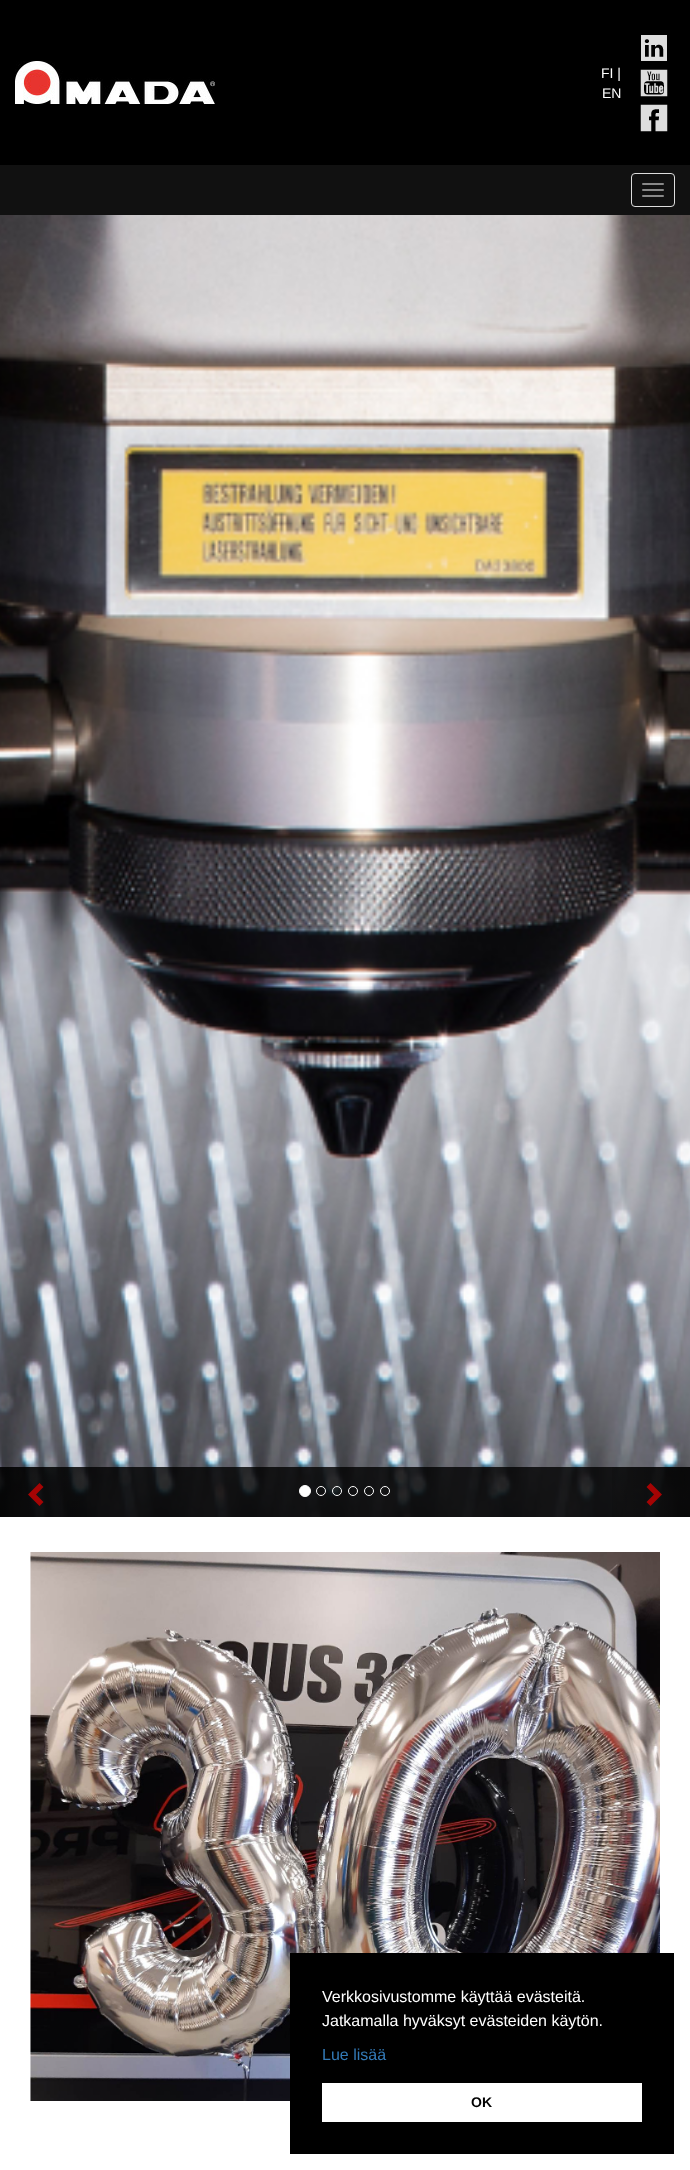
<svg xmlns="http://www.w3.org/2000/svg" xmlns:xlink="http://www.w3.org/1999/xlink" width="690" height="2170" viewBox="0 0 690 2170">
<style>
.cls-1{font:14px Liberation Sans;fill:#ffffff}
.cls-2{font:16px Liberation Sans;fill:#ffffff}
.cls-3{font:16px Liberation Sans;fill:#337ab7}
.cls-4{font:bold 14px Liberation Sans;fill:#000000}
</style>
<defs>
<linearGradient id="g1" gradientUnits="userSpaceOnUse" x1="0" y1="1492" x2="104" y2="1492"><stop offset="0" stop-color="#000000" stop-opacity="0.5"/><stop offset="1" stop-color="#000000" stop-opacity="0"/></linearGradient>
<linearGradient id="g2" gradientUnits="userSpaceOnUse" x1="587" y1="1492" x2="690" y2="1492"><stop offset="0" stop-color="#000000" stop-opacity="0"/><stop offset="1" stop-color="#000000" stop-opacity="0.5"/></linearGradient>
</defs>
<rect width="100%" height="100%" fill="#ffffff"/>
<rect fill="#000000" x="0" y="0" width="690" height="165"/>
<image xlink:href="image0.png" x="15" y="61" width="200" height="43"/>
<image xlink:href="image1.png" x="641" y="35" width="26" height="26"/>
<image xlink:href="image2.png" x="640" y="69" width="28" height="28"/>
<image xlink:href="image3.png" x="640" y="104" width="28" height="28"/>
<rect fill="#111111" x="0" y="165" width="690" height="50"/>
<rect fill="none" stroke="#dddddd" x="631.5" y="173.5" width="43" height="33" rx="3.5"/>
<rect fill="#888888" x="642" y="183" width="22" height="2" rx="1"/>
<rect fill="#888888" x="642" y="189" width="22" height="2" rx="1"/>
<rect fill="#888888" x="642" y="195" width="22" height="2" rx="1"/>
<image xlink:href="image4.png" x="0" y="215" width="690" height="1302"/>
<rect fill="#000000" fill-opacity="0.8" x="0" y="1467" width="690" height="50"/>
<rect fill="url(#g1)" x="0" y="1467" width="87" height="50"/>
<path fill="#a50404" d="M43.5 1487L36 1494.5L43.5 1502L39.5 1506L28 1494.5L39.5 1483Z"/>
<circle fill="#ffffff" stroke="#ffffff" cx="305" cy="1491" r="5.5"/>
<circle fill="none" stroke="#ffffff" cx="321" cy="1491" r="4.5"/>
<circle fill="none" stroke="#ffffff" cx="337" cy="1491" r="4.5"/>
<circle fill="none" stroke="#ffffff" cx="353" cy="1491" r="4.5"/>
<circle fill="none" stroke="#ffffff" cx="369" cy="1491" r="4.5"/>
<circle fill="none" stroke="#ffffff" cx="385" cy="1491" r="4.5"/>
<rect fill="url(#g2)" x="612" y="1467" width="78" height="50"/>
<path fill="#a50404" d="M662 1494.5L650.5 1506L646.5 1502L654 1494.5L646.5 1487L650.5 1483Z"/>
<image xlink:href="image5.png" x="30" y="1552" width="630" height="549"/>
<rect fill="#000000" x="290" y="1953" width="384" height="201"/>
<rect fill="#ffffff" x="322" y="2083" width="320" height="39"/>
<text class="cls-1" x="601" y="78">FI |</text>
<text class="cls-1" x="602" y="98">EN</text>
<text class="cls-2"><tspan x="322" y="2002">Verkkosivustomme käyttää evästeitä.</tspan><tspan x="322" y="2026">Jatkamalla hyväksyt evästeiden käytön.</tspan></text>
<text class="cls-3" x="322" y="2060">Lue lisää</text>
<text class="cls-4" x="471" y="2107">OK</text>
</svg>
